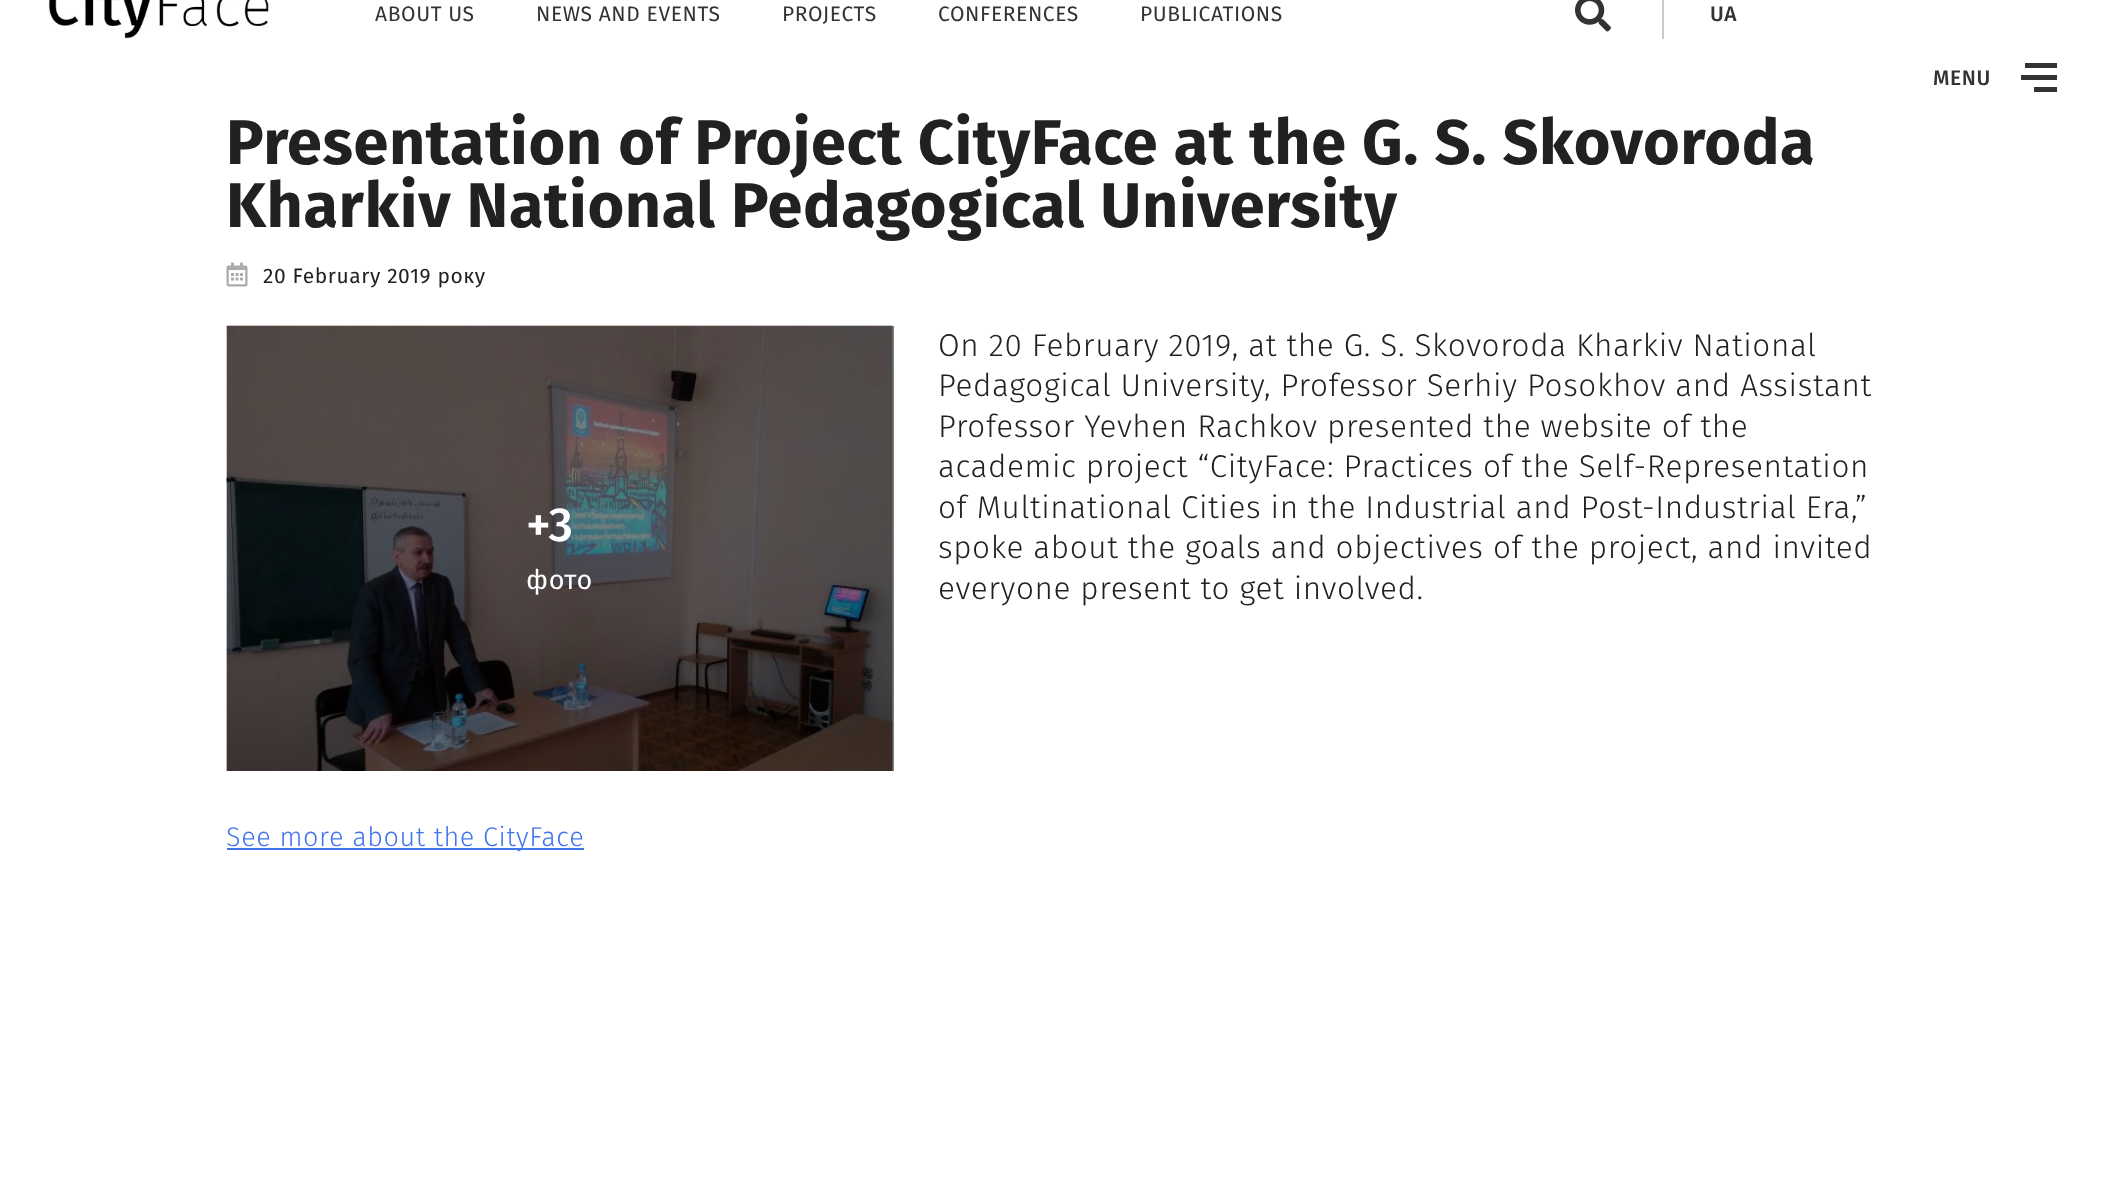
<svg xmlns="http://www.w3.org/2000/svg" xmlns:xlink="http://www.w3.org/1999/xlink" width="2116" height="1187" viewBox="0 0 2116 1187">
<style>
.cls-1{font:21px Fira Sans;letter-spacing:0.6px;fill:#333333}
.cls-2{font:500 21px Fira Sans;letter-spacing:0.6px;fill:#333333}
.cls-3{font:bold 63px Fira Sans;letter-spacing:0.6px;fill:#212121}
.cls-4{font:21px Fira Sans;letter-spacing:0.6px;fill:#212121}
.cls-5{font:500 48px Fira Sans;letter-spacing:0.6px;fill:#ffffff}
.cls-6{font:27px Fira Sans;letter-spacing:0.6px;fill:#ffffff}
.cls-7{font:300 31.5px Fira Sans;letter-spacing:0.6px;fill:#212121}
.cls-8{font:300 27px Fira Sans;letter-spacing:0.6px;fill:#4175ee}
</style>
<rect width="100%" height="100%" fill="#ffffff"/>
<rect fill="#808080" x="892" y="326" width="2" height="445"/>
<image xlink:href="image0.png" x="48" y="0" width="221" height="39"/>
<image xlink:href="image1.png" x="1575" y="0" width="36" height="32"/>
<rect fill="#cacaca" x="1662" y="0" width="2" height="39"/>
<rect fill="#333333" x="2025" y="63" width="32" height="5"/>
<rect fill="#333333" x="2021" y="75" width="36" height="5"/>
<rect fill="#333333" x="2034" y="87" width="23" height="5"/>
<image xlink:href="image2.png" x="226" y="262" width="22" height="25"/>
<image xlink:href="image3.png" x="226" y="325" width="667" height="446"/>
<rect fill="#4175ee" x="227" y="848" width="357" height="2"/>
<text class="cls-1" x="375" y="21">ABOUT US</text>
<text class="cls-1" x="536" y="21">NEWS AND EVENTS</text>
<text class="cls-1" x="782" y="21">PROJECTS</text>
<text class="cls-1" x="938" y="21">CONFERENCES</text>
<text class="cls-1" x="1140" y="21">PUBLICATIONS</text>
<text class="cls-2" x="1710" y="21">UA</text>
<text class="cls-2" x="1933" y="85">MENU</text>
<text class="cls-3"><tspan x="226" y="164">Presentation of Project CityFace at the G. S. Skovoroda</tspan><tspan x="226" y="227">Kharkiv National Pedagogical University</tspan></text>
<text class="cls-4" x="263" y="283">20 February 2019 року</text>
<text class="cls-5" x="526" y="541">+3</text>
<text class="cls-6" x="526" y="589">фото</text>
<text class="cls-7"><tspan x="938" y="356">On 20 February 2019, at the G. S. Skovoroda Kharkiv National</tspan><tspan x="938" y="396">Pedagogical University, Professor Serhiy Posokhov and Assistant</tspan><tspan x="938" y="437">Professor Yevhen Rachkov presented the website of the</tspan><tspan x="938" y="477">academic project “CityFace: Practices of the Self-Representation</tspan><tspan x="938" y="518">of Multinational Cities in the Industrial and Post-Industrial Era,”</tspan><tspan x="938" y="558">spoke about the goals and objectives of the project, and invited</tspan><tspan x="938" y="599">everyone present to get involved.</tspan></text>
<text class="cls-8" x="226" y="846">See more about the CityFace</text>
</svg>
